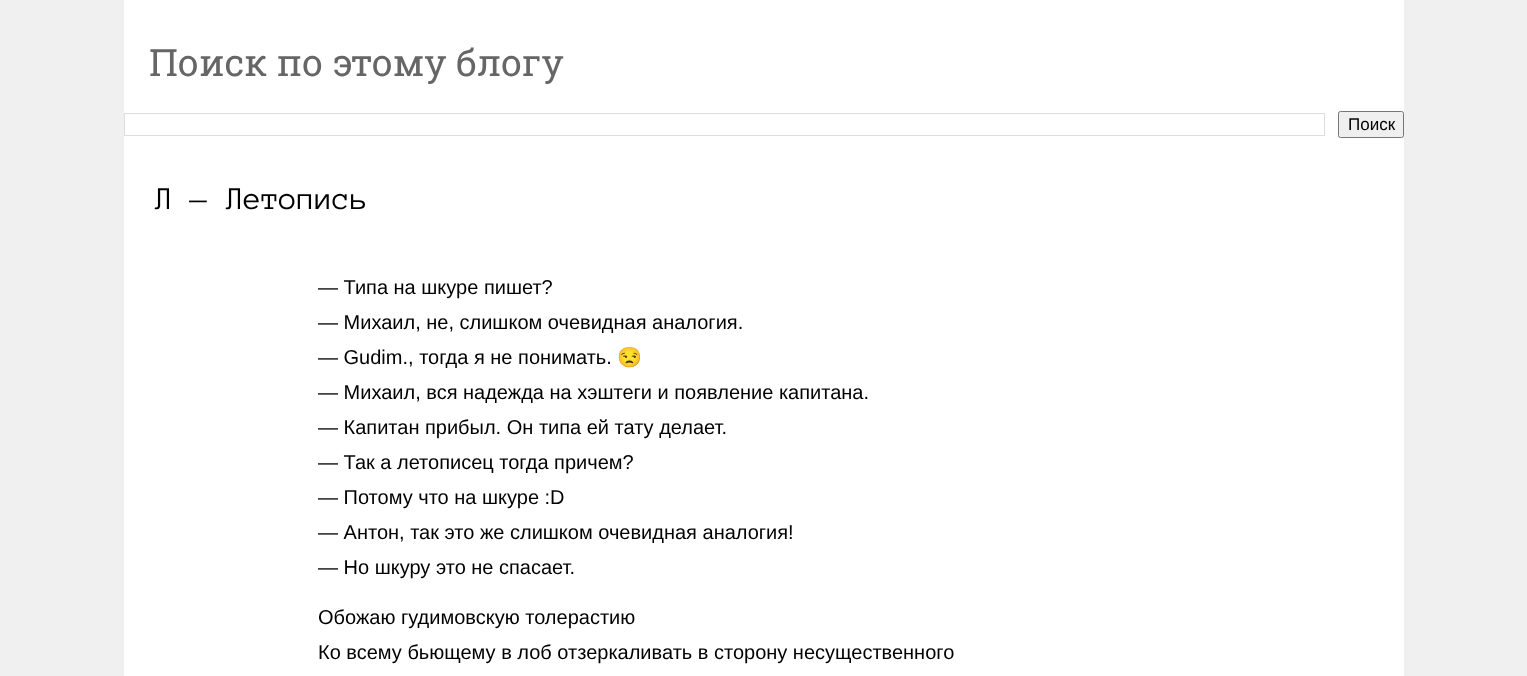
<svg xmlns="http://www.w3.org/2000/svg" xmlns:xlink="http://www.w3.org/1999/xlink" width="1527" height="676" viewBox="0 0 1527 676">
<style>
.cls-1{font:37.5px Roboto Slab;fill:#666666}
.cls-2{font:17px Liberation Sans;fill:#000000}
.cls-3{font:32.5px Anonymous Pro;fill:#000000}
.cls-4{font:20px Liberation Sans;fill:#000000}
.cls-5{font:20px Noto Color Emoji;fill:#000000}
</style>
<rect width="100%" height="100%" fill="#f0f0f0"/>
<rect fill="#ffffff" x="124" y="0" width="1280" height="676"/>
<rect fill="none" stroke="#dddddd" x="124.5" y="113.5" width="1200" height="22"/>
<rect fill="#efefef" stroke="#767676" x="1338.5" y="111.5" width="65" height="26" rx="2"/>
<text class="cls-1" x="149" y="76">Поиск по этому блогу</text>
<text class="cls-2" x="1348" y="130">Поиск</text>
<text class="cls-3" x="155" y="209">Л — Летопись</text>
<text class="cls-4"><tspan x="318" y="294">— Типа на шкуре пишет?</tspan><tspan x="318" y="329">— Михаил, не, слишком очевидная аналогия.</tspan><tspan x="318" y="364">— Gudim., тогда я не понимать.</tspan></text>
<text class="cls-5" x="617" y="364">😒</text>
<text class="cls-4"><tspan x="318" y="399">— Михаил, вся надежда на хэштеги и появление капитана.</tspan><tspan x="318" y="434">— Капитан прибыл. Он типа ей тату делает.</tspan><tspan x="318" y="469">— Так а летописец тогда причем?</tspan><tspan x="318" y="504">— Потому что на шкуре :D</tspan><tspan x="318" y="539">— Антон, так это же слишком очевидная аналогия!</tspan><tspan x="318" y="574">— Но шкуру это не спасает.</tspan></text>
<text class="cls-4"><tspan x="318" y="624">Обожаю гудимовскую толерастию</tspan><tspan x="318" y="659">Ко всему бьющему в лоб отзеркаливать в сторону несущественного</tspan></text>
</svg>
